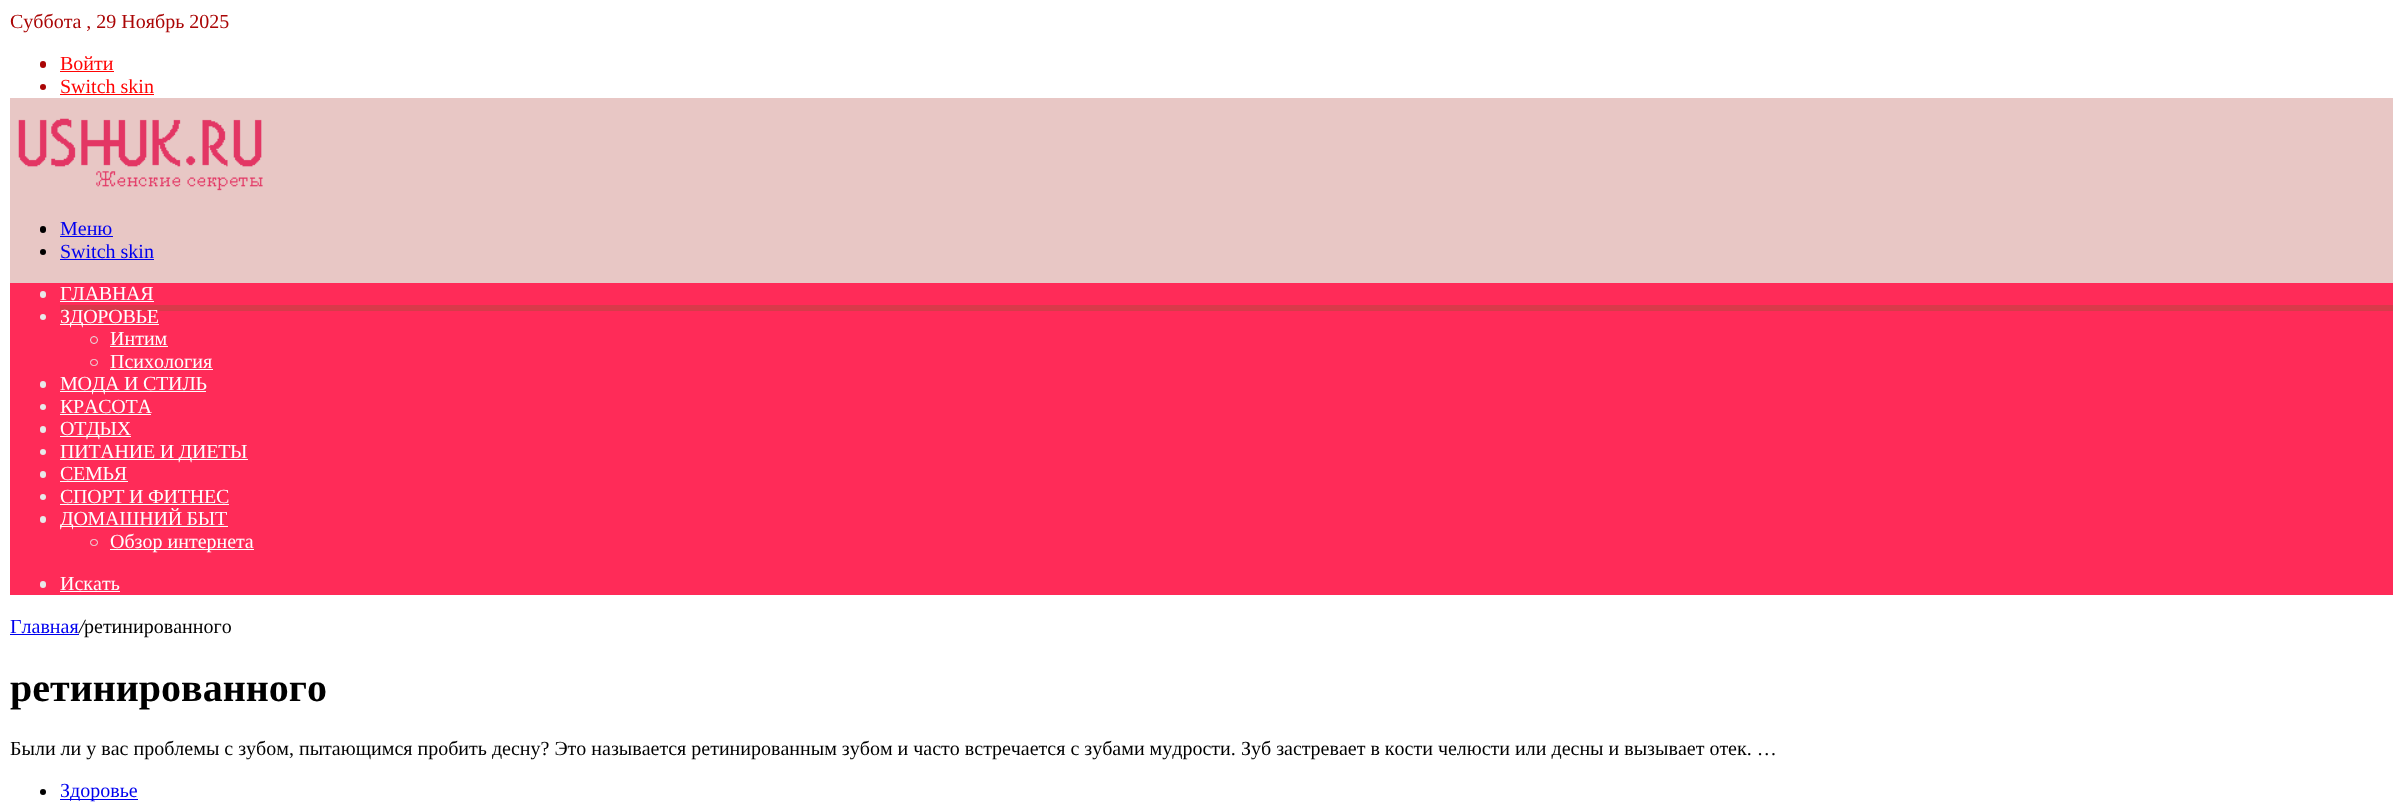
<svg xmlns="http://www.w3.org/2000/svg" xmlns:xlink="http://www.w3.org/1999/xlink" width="2402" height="802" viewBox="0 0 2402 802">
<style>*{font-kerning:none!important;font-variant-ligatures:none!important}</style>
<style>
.cls-1{font:20px Liberation Serif;fill:#aa0505}
.cls-2{font:20px Liberation Serif;fill:#ff0505}
.cls-3{font:20px Liberation Serif;fill:#0000ee}
.cls-4{font:20px Liberation Serif;letter-spacing:-0.25px;fill:#ffffff}
.cls-5{font:20px Liberation Serif;fill:#ffffff}
.cls-6{font:italic 20px Liberation Serif;fill:#000000}
.cls-7{font:20px Liberation Serif;fill:#000000}
.cls-8{font:bold 40px Liberation Serif;fill:#000000}
</style>
<rect width="100%" height="100%" fill="#ffffff"/>
<rect fill="#e8c7c5" x="10" y="98" width="2383" height="185"/>
<rect fill="#aa0505" x="40" y="61" width="6" height="7" rx="3"/>
<rect fill="#ff0505" x="60" y="71" width="54" height="1"/>
<circle fill="#aa0505" cx="43" cy="87" r="3"/>
<rect fill="#ff0505" x="60" y="94" width="94" height="1"/>
<image xlink:href="image0.png" x="18" y="118" width="245" height="73"/>
<rect fill="#000000" x="40" y="226" width="6" height="7" rx="3"/>
<rect fill="#0000ee" x="60" y="236" width="53" height="1"/>
<circle fill="#000000" cx="43" cy="252" r="3"/>
<rect fill="#0000ee" x="60" y="259" width="94" height="1"/>
<rect fill="#ff2b58" x="10" y="283" width="2383" height="312"/>
<rect fill="#d83a4a" x="60" y="305" width="2333" height="6"/>
<rect fill="#e8e8e8" x="40" y="291" width="6" height="7" rx="3"/>
<rect fill="#ffffff" x="60" y="301" width="94" height="1"/>
<circle fill="#e8e8e8" cx="43" cy="317" r="3"/>
<rect fill="#ffffff" x="60" y="324" width="99" height="1"/>
<circle fill="none" stroke="#e8e8e8" cx="94" cy="340" r="3.5"/>
<rect fill="#ffffff" x="110" y="346" width="58" height="1"/>
<rect fill="none" stroke="#e8e8e8" x="90.5" y="359.5" width="7" height="6" rx="3"/>
<rect fill="#ffffff" x="110" y="369" width="103" height="1"/>
<rect fill="#e8e8e8" x="40" y="381" width="6" height="7" rx="3"/>
<rect fill="#ffffff" x="60" y="391" width="146" height="1"/>
<circle fill="#e8e8e8" cx="43" cy="407" r="3"/>
<rect fill="#ffffff" x="60" y="414" width="91" height="1"/>
<rect fill="#e8e8e8" x="40" y="426" width="6" height="7" rx="3"/>
<rect fill="#ffffff" x="60" y="436" width="71" height="1"/>
<circle fill="#e8e8e8" cx="43" cy="452" r="3"/>
<rect fill="#ffffff" x="60" y="459" width="188" height="1"/>
<rect fill="#e8e8e8" x="40" y="471" width="6" height="7" rx="3"/>
<rect fill="#ffffff" x="60" y="481" width="68" height="1"/>
<circle fill="#e8e8e8" cx="43" cy="497" r="3"/>
<rect fill="#ffffff" x="60" y="504" width="169" height="1"/>
<rect fill="#e8e8e8" x="40" y="516" width="6" height="7" rx="3"/>
<rect fill="#ffffff" x="60" y="526" width="168" height="1"/>
<rect fill="none" stroke="#e8e8e8" x="90.5" y="539.5" width="7" height="6" rx="3"/>
<rect fill="#ffffff" x="110" y="549" width="144" height="1"/>
<rect fill="#e8e8e8" x="40" y="581" width="6" height="7" rx="3"/>
<rect fill="#ffffff" x="60" y="591" width="60" height="1"/>
<rect fill="#0000ee" x="10" y="634" width="69" height="1"/>
<circle fill="#000000" cx="43" cy="792" r="3"/>
<rect fill="#0000ee" x="60" y="799" width="78" height="1"/>
<text class="cls-1" x="10" y="28">Суббота , 29 Ноябрь 2025</text>
<text class="cls-2"><tspan x="60" y="70">Войти</tspan><tspan x="60" y="93">Switch skin</tspan></text>
<text class="cls-3"><tspan x="60" y="235">Меню</tspan><tspan x="60" y="258">Switch skin</tspan></text>
<text class="cls-4"><tspan x="60" y="300">ГЛАВНАЯ</tspan><tspan x="60" y="323">ЗДОРОВЬЕ</tspan></text>
<text class="cls-5"><tspan x="110" y="345">Интим</tspan><tspan x="110" y="368">Психология</tspan></text>
<text class="cls-4"><tspan x="60" y="390">МОДА И СТИЛЬ</tspan><tspan x="60" y="413">КРАСОТА</tspan><tspan x="60" y="435">ОТДЫХ</tspan><tspan x="60" y="458">ПИТАНИЕ И ДИЕТЫ</tspan><tspan x="60" y="480">СЕМЬЯ</tspan><tspan x="60" y="503">СПОРТ И ФИТНЕС</tspan><tspan x="60" y="525">ДОМАШНИЙ БЫТ</tspan></text>
<text class="cls-5" x="110" y="548">Обзор интернета</text>
<text class="cls-5" x="60" y="590">Искать</text>
<text class="cls-3" x="10" y="633">Главная</text>
<text class="cls-6" x="79" y="633">/</text>
<text class="cls-7" x="84" y="633">ретинированного</text>
<text class="cls-8" x="10" y="701">ретинированного</text>
<text class="cls-7" x="10" y="755">Были ли у вас проблемы с зубом, пытающимся пробить десну? Это называется ретинированным зубом и часто встречается с зубами мудрости.</text>
<text class="cls-7" x="1241" y="755">Зуб застревает в кости челюсти или десны и вызывает отек. …</text>
<text class="cls-3" x="60" y="797">Здоровье</text>
</svg>
